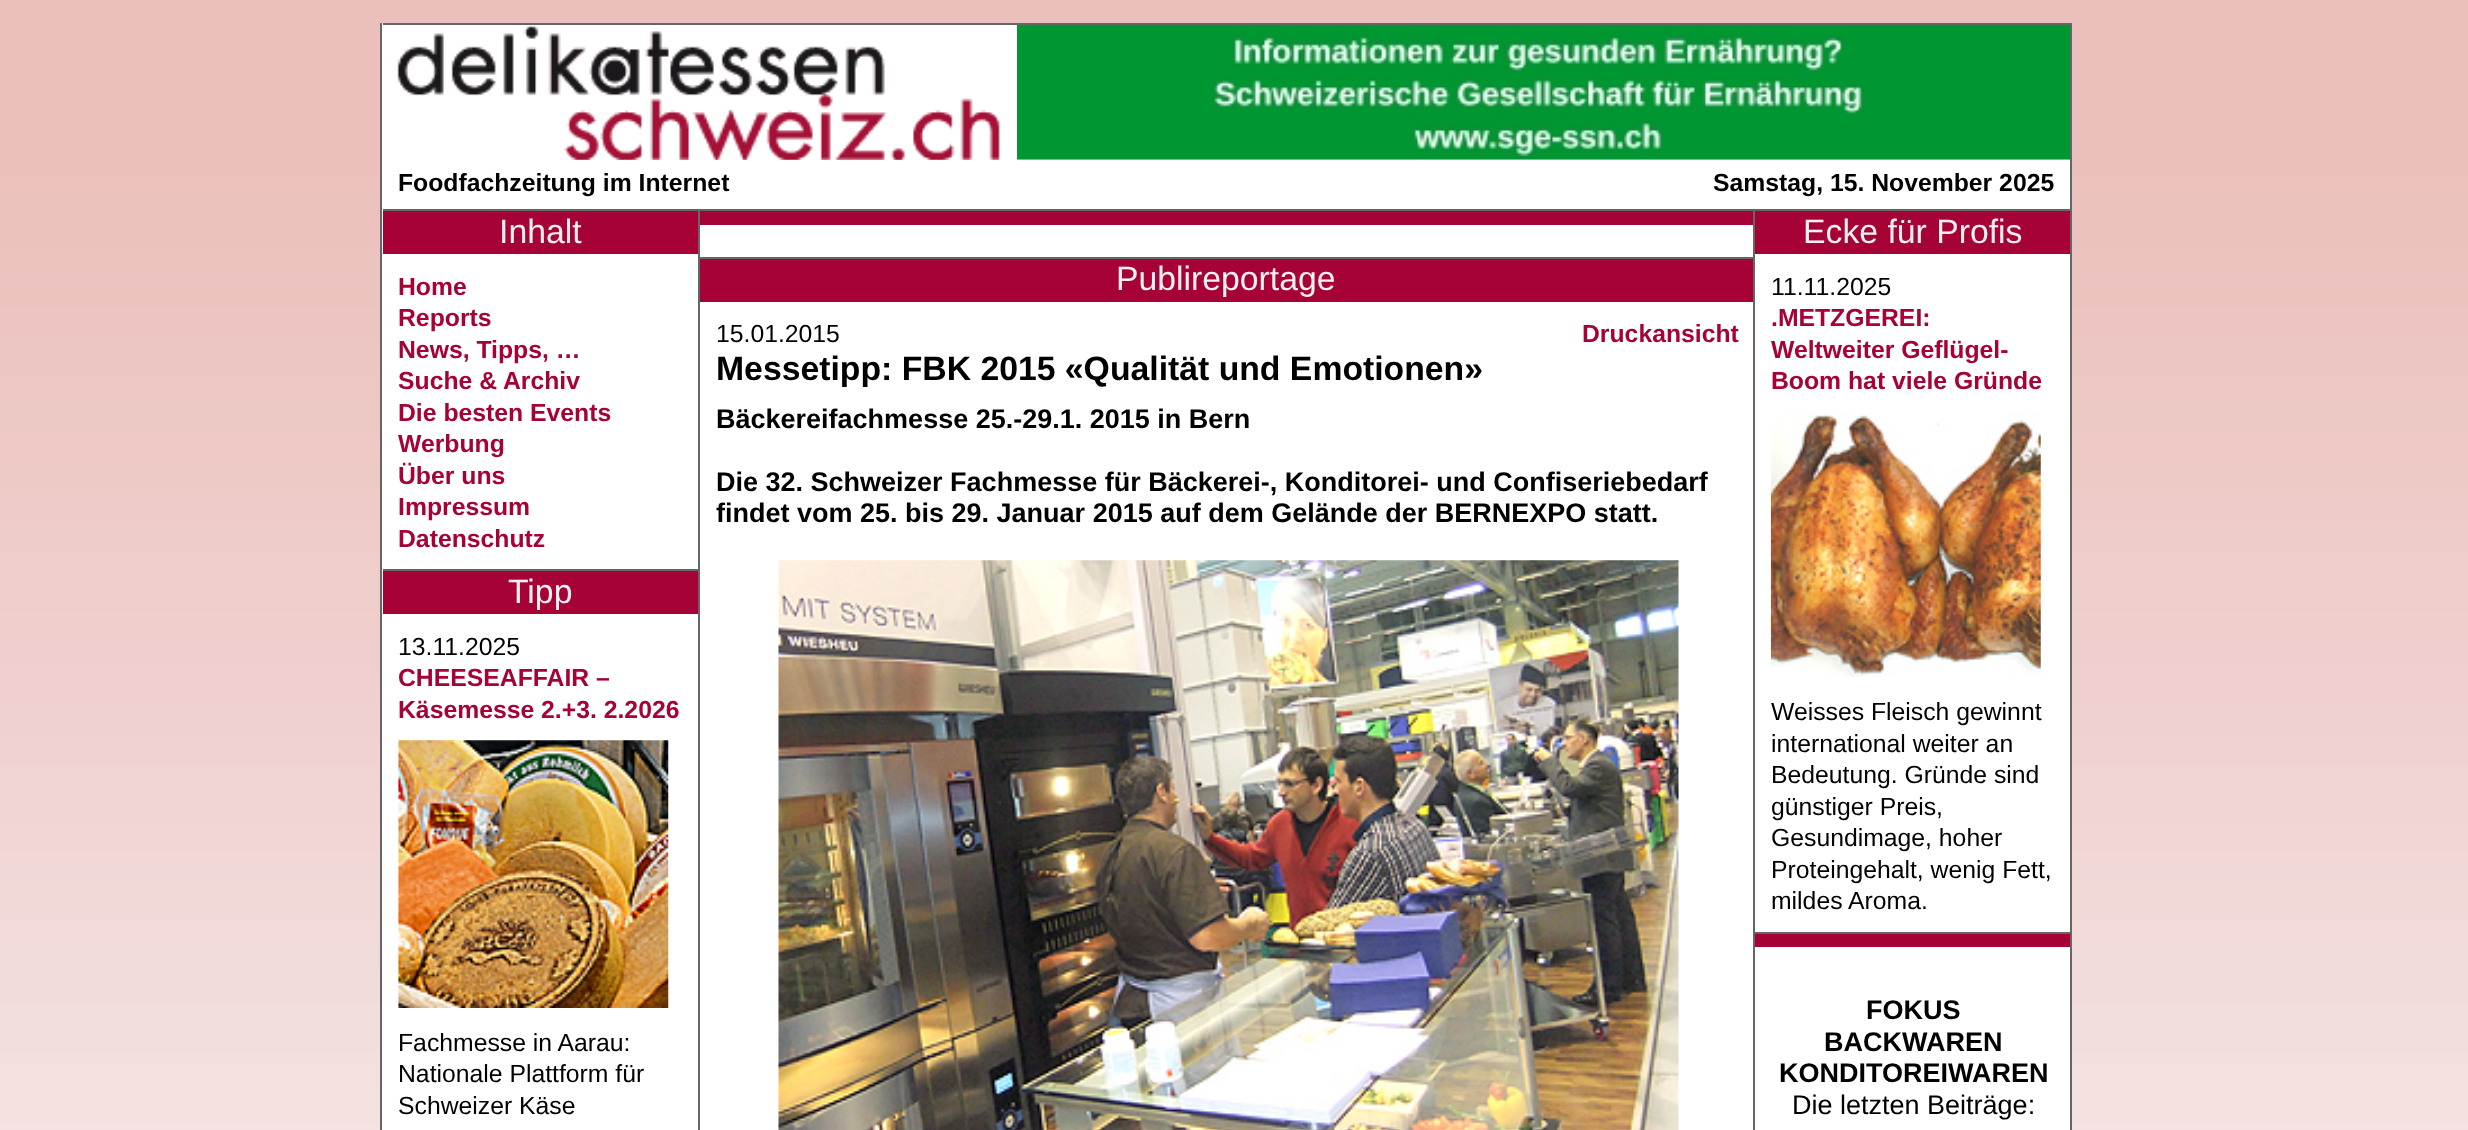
<svg xmlns="http://www.w3.org/2000/svg" xmlns:xlink="http://www.w3.org/1999/xlink" width="2468" height="1130" viewBox="0 0 2468 1130">
<style>
.cls-1{font:bold 24.75px Liberation Sans;fill:#000000}
.cls-2{font:33.75px Liberation Sans;fill:#f6f0f0}
.cls-3{font:bold 24.75px Liberation Sans;fill:#a60235}
.cls-4{font:24.75px Liberation Sans;fill:#000000}
.cls-5{font:bold 33.75px Liberation Sans;fill:#000000}
.cls-6{font:bold 27px Liberation Sans;fill:#000000}
.cls-7{font:27px Liberation Sans;fill:#000000}
</style>
<rect width="100%" height="100%" fill="#ffffff"/>
<image xlink:href="image0.png" x="0" y="0" width="2468" height="1130"/>
<rect fill="#ffffff" x="382" y="23" width="1688" height="1107"/>
<rect fill="#666666" x="2070" y="23" width="2" height="1107"/>
<rect fill="#666666" x="380" y="23" width="2" height="1107"/>
<rect fill="#666666" x="383" y="23" width="1687" height="2"/>
<image xlink:href="image1.png" x="397" y="26" width="603" height="134"/>
<image xlink:href="image2.png" x="1017" y="24" width="1053" height="136"/>
<rect fill="#666666" x="698" y="209" width="2" height="921"/>
<rect fill="#a60235" x="383" y="211" width="315" height="43"/>
<rect fill="#666666" x="383" y="209" width="315" height="2"/>
<rect fill="#a60235" x="383" y="571" width="315" height="43"/>
<rect fill="#666666" x="383" y="569" width="315" height="2"/>
<image xlink:href="image3.png" x="398" y="740" width="271" height="268"/>
<rect fill="#a60235" x="700" y="211" width="1053" height="14"/>
<rect fill="#666666" x="700" y="209" width="1053" height="2"/>
<rect fill="#a60235" x="700" y="259" width="1053" height="43"/>
<rect fill="#666666" x="700" y="257" width="1053" height="2"/>
<image xlink:href="image4.png" x="778" y="560" width="901" height="570"/>
<rect fill="#666666" x="1753" y="209" width="2" height="921"/>
<rect fill="#a60235" x="1755" y="211" width="315" height="43"/>
<rect fill="#666666" x="1755" y="209" width="315" height="2"/>
<image xlink:href="image5.png" x="1770" y="412" width="271" height="265"/>
<rect fill="#a60235" x="1755" y="934" width="315" height="13"/>
<rect fill="#666666" x="1755" y="932" width="315" height="2"/>
<text class="cls-1" x="398" y="191">Foodfachzeitung im Internet</text>
<text class="cls-1" x="1713" y="191">Samstag, 15. November 2025</text>
<text class="cls-2" x="499" y="243">Inhalt</text>
<text class="cls-3"><tspan x="398" y="295">Home</tspan><tspan x="398" y="326">Reports</tspan><tspan x="398" y="358">News, Tipps, …</tspan><tspan x="398" y="389">Suche &amp; Archiv</tspan><tspan x="398" y="421">Die besten Events</tspan><tspan x="398" y="452">Werbung</tspan><tspan x="398" y="484">Über uns</tspan><tspan x="398" y="515">Impressum</tspan><tspan x="398" y="547">Datenschutz</tspan></text>
<text class="cls-2" x="508" y="603">Tipp</text>
<text class="cls-4" x="398" y="655">13.11.2025</text>
<text class="cls-3"><tspan x="398" y="686">CHEESEAFFAIR –</tspan><tspan x="398" y="718">Käsemesse 2.+3. 2.2026</tspan></text>
<text class="cls-4"><tspan x="398" y="1051">Fachmesse in Aarau:</tspan><tspan x="398" y="1082">Nationale Plattform für</tspan><tspan x="398" y="1114">Schweizer Käse</tspan></text>
<text class="cls-2" x="1116" y="290">Publireportage</text>
<text class="cls-4" x="716" y="342">15.01.2015</text>
<text class="cls-3" x="1582" y="342">Druckansicht</text>
<text class="cls-5" x="716" y="380">Messetipp: FBK 2015 «Qualität und Emotionen»</text>
<text class="cls-6" x="716" y="428">Bäckereifachmesse 25.-29.1. 2015 in Bern</text>
<text class="cls-6"><tspan x="716" y="491">Die 32. Schweizer Fachmesse für Bäckerei-, Konditorei- und Confiseriebedarf</tspan><tspan x="716" y="522">findet vom 25. bis 29. Januar 2015 auf dem Gelände der BERNEXPO statt.</tspan></text>
<text class="cls-2" x="1803" y="243">Ecke für Profis</text>
<text class="cls-4" x="1771" y="295">11.11.2025</text>
<text class="cls-3"><tspan x="1771" y="326">.METZGEREI:</tspan><tspan x="1771" y="358">Weltweiter Geflügel-</tspan><tspan x="1771" y="389">Boom hat viele Gründe</tspan></text>
<text class="cls-4"><tspan x="1771" y="720">Weisses Fleisch gewinnt</tspan><tspan x="1771" y="752">international weiter an</tspan><tspan x="1771" y="783">Bedeutung. Gründe sind</tspan><tspan x="1771" y="815">günstiger Preis,</tspan><tspan x="1771" y="846">Gesundimage, hoher</tspan><tspan x="1771" y="878">Proteingehalt, wenig Fett,</tspan><tspan x="1771" y="909">mildes Aroma.</tspan></text>
<text class="cls-6" x="1866" y="1019">FOKUS</text>
<text class="cls-6" x="1824" y="1051">BACKWAREN</text>
<text class="cls-6" x="1779" y="1082">KONDITOREIWAREN</text>
<text class="cls-7" x="1792" y="1114">Die letzten Beiträge:</text>
</svg>
